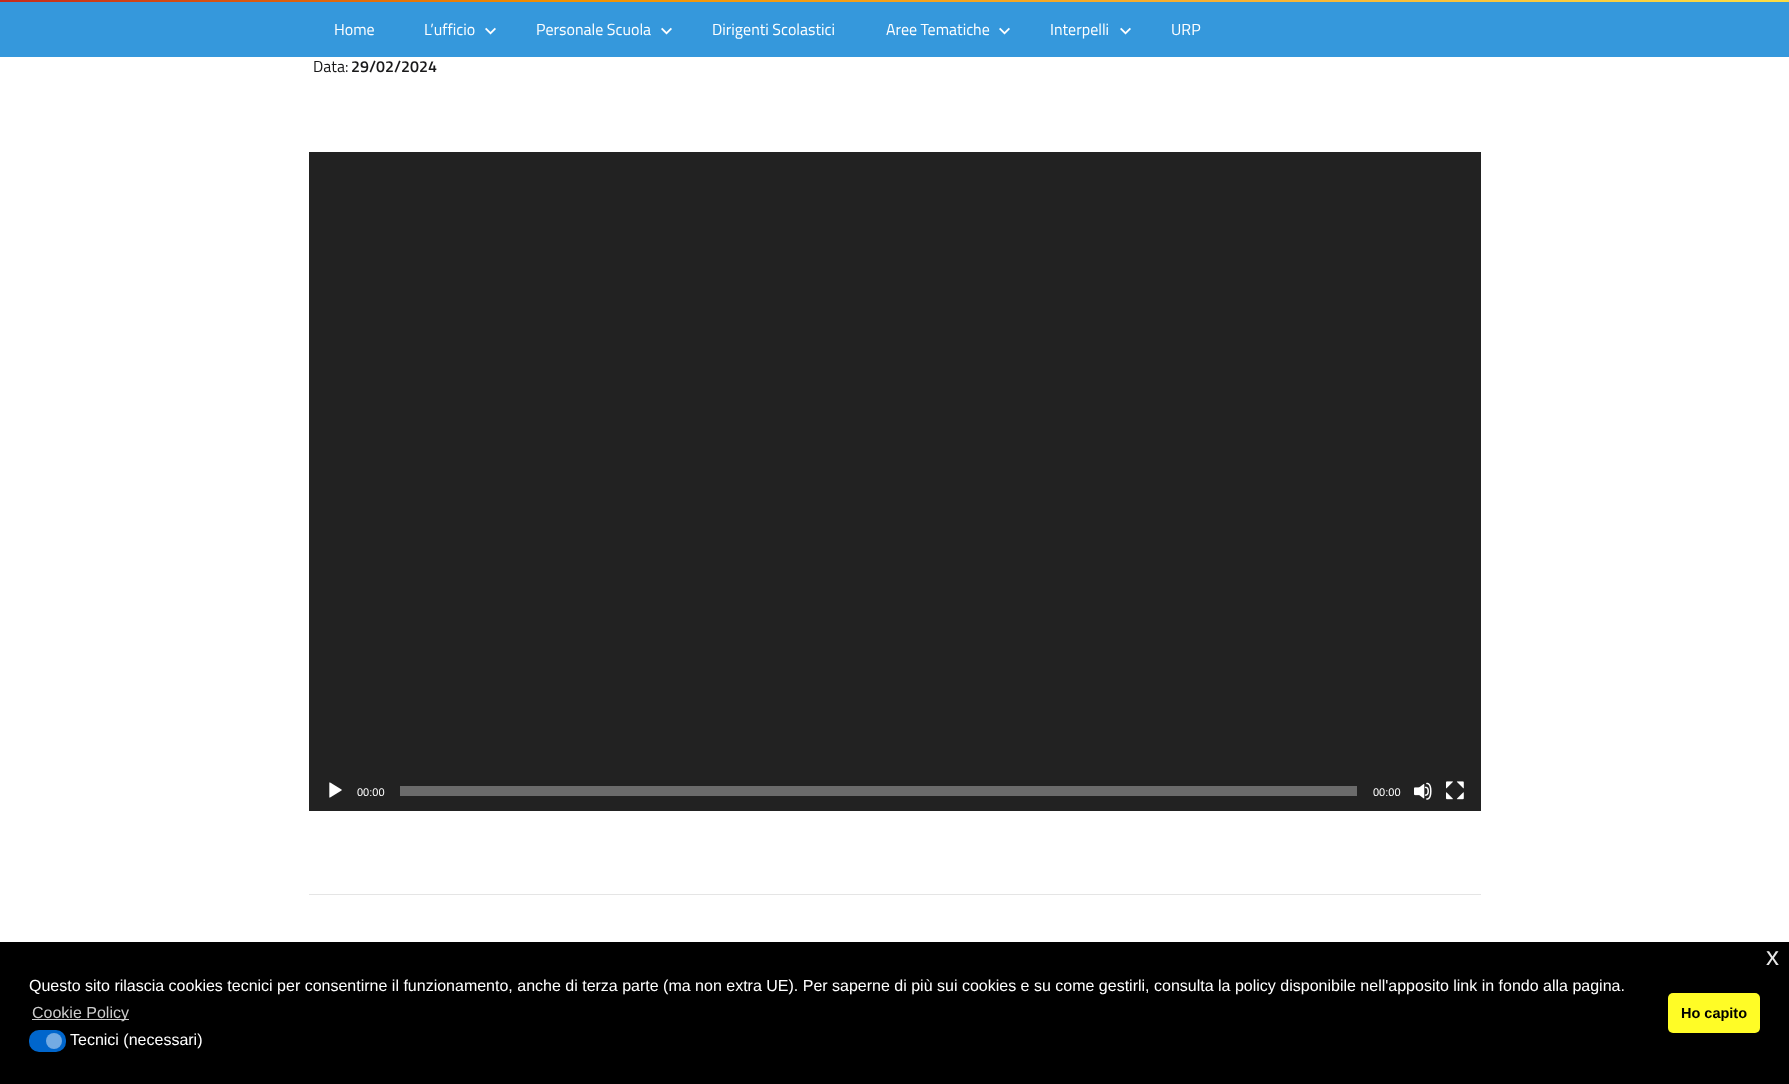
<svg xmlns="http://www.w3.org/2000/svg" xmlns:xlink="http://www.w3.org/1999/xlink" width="1789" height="1084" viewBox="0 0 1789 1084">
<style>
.cls-1{font:16px Titillium Web;fill:#ffffff}
.cls-2{font:16px Titillium Web;fill:#19191a}
.cls-3{font:600 16px Titillium Web;fill:#19191a}
.cls-4{font:11px Liberation Sans;fill:#ffffff}
.cls-5{font:26px Liberation Sans;fill:#e6e6e6}
.cls-6{font:16px Liberation Sans;fill:#ffffff}
.cls-7{font:16px Liberation Sans;fill:#cccccc}
.cls-8{font:bold 14.5px Liberation Sans;fill:#000000}
</style>
<rect width="100%" height="100%" fill="#ffffff"/>
<rect fill="#3598dc" x="0" y="2" width="1789" height="55"/>
<image xlink:href="image0.png" x="0" y="0" width="1789" height="2"/>
<image xlink:href="image1.png" x="485" y="27" width="11" height="8"/>
<image xlink:href="image1.png" x="661" y="27" width="11" height="8"/>
<image xlink:href="image1.png" x="999" y="27" width="11" height="8"/>
<image xlink:href="image1.png" x="1120" y="27" width="11" height="8"/>
<rect fill="#222222" x="309" y="152" width="1172" height="659"/>
<image xlink:href="image2.png" x="329" y="782" width="13" height="16"/>
<rect fill="#6b6b6b" x="400" y="786" width="957" height="10"/>
<image xlink:href="image3.png" x="1414" y="782" width="18" height="18"/>
<image xlink:href="image4.png" x="1446" y="781" width="18" height="19"/>
<rect fill="#e5e5e5" x="309" y="894" width="1172" height="1"/>
<rect fill="#000000" x="0" y="942" width="1789" height="142"/>
<rect fill="#cccccc" x="32" y="1019" width="97" height="1"/>
<rect fill="#0066cc" x="29" y="1030" width="37" height="22" rx="10"/>
<circle fill="#73abe3" cx="54" cy="1041" r="8"/>
<rect fill="#fffc26" x="1668" y="993" width="92" height="40" rx="5"/>
<text class="cls-1" x="334" y="35">Home</text>
<text class="cls-1" x="424" y="35">L’ufficio</text>
<text class="cls-1" x="536" y="35">Personale Scuola</text>
<text class="cls-1" x="712" y="35">Dirigenti Scolastici</text>
<text class="cls-1" x="886" y="35">Aree Tematiche</text>
<text class="cls-1" x="1050" y="35">Interpelli</text>
<text class="cls-1" x="1171" y="35">URP</text>
<text class="cls-2" x="313" y="72">Data:</text>
<text class="cls-3" x="351" y="72">29/02/2024</text>
<text class="cls-4" x="357" y="796">00:00</text>
<text class="cls-4" x="1373" y="796">00:00</text>
<text class="cls-5" x="1766" y="965">x</text>
<text class="cls-6" x="29" y="991">Questo sito rilascia cookies tecnici per consentirne il funzionamento, anche di terza parte (ma non extra UE). Per saperne di più sui cookies e su come gestirli, consulta la policy disponibile nell'apposito link in fondo alla pagina.</text>
<text class="cls-7" x="32" y="1018">Cookie Policy</text>
<text class="cls-6" x="70" y="1045">Tecnici (necessari)</text>
<text class="cls-8" x="1681" y="1018">Ho capito</text>
</svg>
